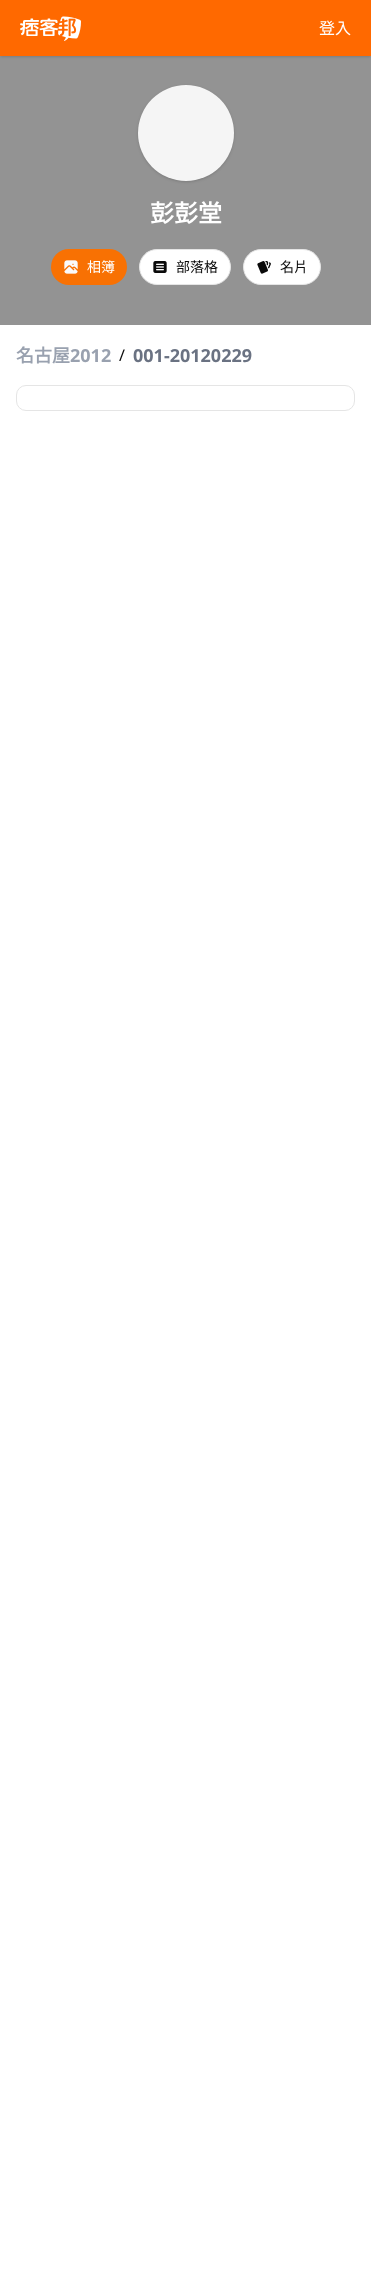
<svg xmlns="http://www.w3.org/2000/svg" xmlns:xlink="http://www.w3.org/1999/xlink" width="371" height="2293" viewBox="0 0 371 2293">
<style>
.cls-1{font:16px Noto Sans CJK TC;fill:#ffffff}
.cls-2{font:bold 24px Noto Sans CJK TC;fill:#ffffff}
.cls-3{font:14px Noto Sans CJK TC;fill:#ffffff}
.cls-4{font:14px Noto Sans CJK TC;fill:#0a0a0a}
.cls-5{font:bold 18px Noto Sans CJK TC;fill:#99a1af}
.cls-6{font:bold 18px Noto Sans;fill:#99a1af}
.cls-7{font:16px Noto Sans;fill:#0a0a0a}
.cls-8{font:bold 18px Noto Sans;fill:#6a7282}
</style>
<rect width="100%" height="100%" fill="#ffffff"/>
<rect fill="#939393" x="0" y="56" width="371" height="269"/>
<rect fill="#000000" fill-opacity="0.1" filter="blur(1px)" x="1" y="2" width="369" height="54"/>
<rect fill="#000000" fill-opacity="0.1" filter="blur(1.5px)" x="0" y="1" width="371" height="56"/>
<rect fill="#ff6900" x="0" y="0" width="371" height="56"/>
<image xlink:href="image0.png" x="20" y="16" width="61" height="25"/>
<rect fill="#000000" fill-opacity="0.1" filter="blur(1px)" x="139" y="87" width="94" height="94" rx="47"/>
<rect fill="#000000" fill-opacity="0.1" filter="blur(1.5px)" x="138" y="86" width="96" height="96" rx="48"/>
<circle fill="#f5f5f5" cx="186" cy="133" r="48"/>
<rect fill="#f87103" x="51" y="249" width="76" height="36" rx="18"/>
<image xlink:href="image1.png" x="64" y="260" width="14" height="14"/>
<rect fill="#ffffff" stroke="#e5e5e5" x="139.5" y="249.5" width="91" height="35" rx="17.5"/>
<image xlink:href="image2.png" x="153" y="261" width="14" height="12"/>
<rect fill="#ffffff" stroke="#e5e5e5" x="243.5" y="249.5" width="77" height="35" rx="17.5"/>
<image xlink:href="image3.png" x="257" y="261" width="14" height="13"/>
<rect fill="none" stroke="#e5e5e5" x="16.5" y="385.5" width="338" height="25" rx="9.5"/>
<text class="cls-1" x="319" y="34">登入</text>
<text class="cls-2" x="150" y="222">彭彭堂</text>
<text class="cls-3" x="87" y="272">相簿</text>
<text class="cls-4" x="176" y="272">部落格</text>
<text class="cls-4" x="280" y="272">名片</text>
<text class="cls-5" x="16" y="362">名古屋</text>
<text class="cls-6" x="70" y="362">2012</text>
<text class="cls-7" x="119" y="361">/</text>
<text class="cls-8" x="133" y="362">001-20120229</text>
</svg>
